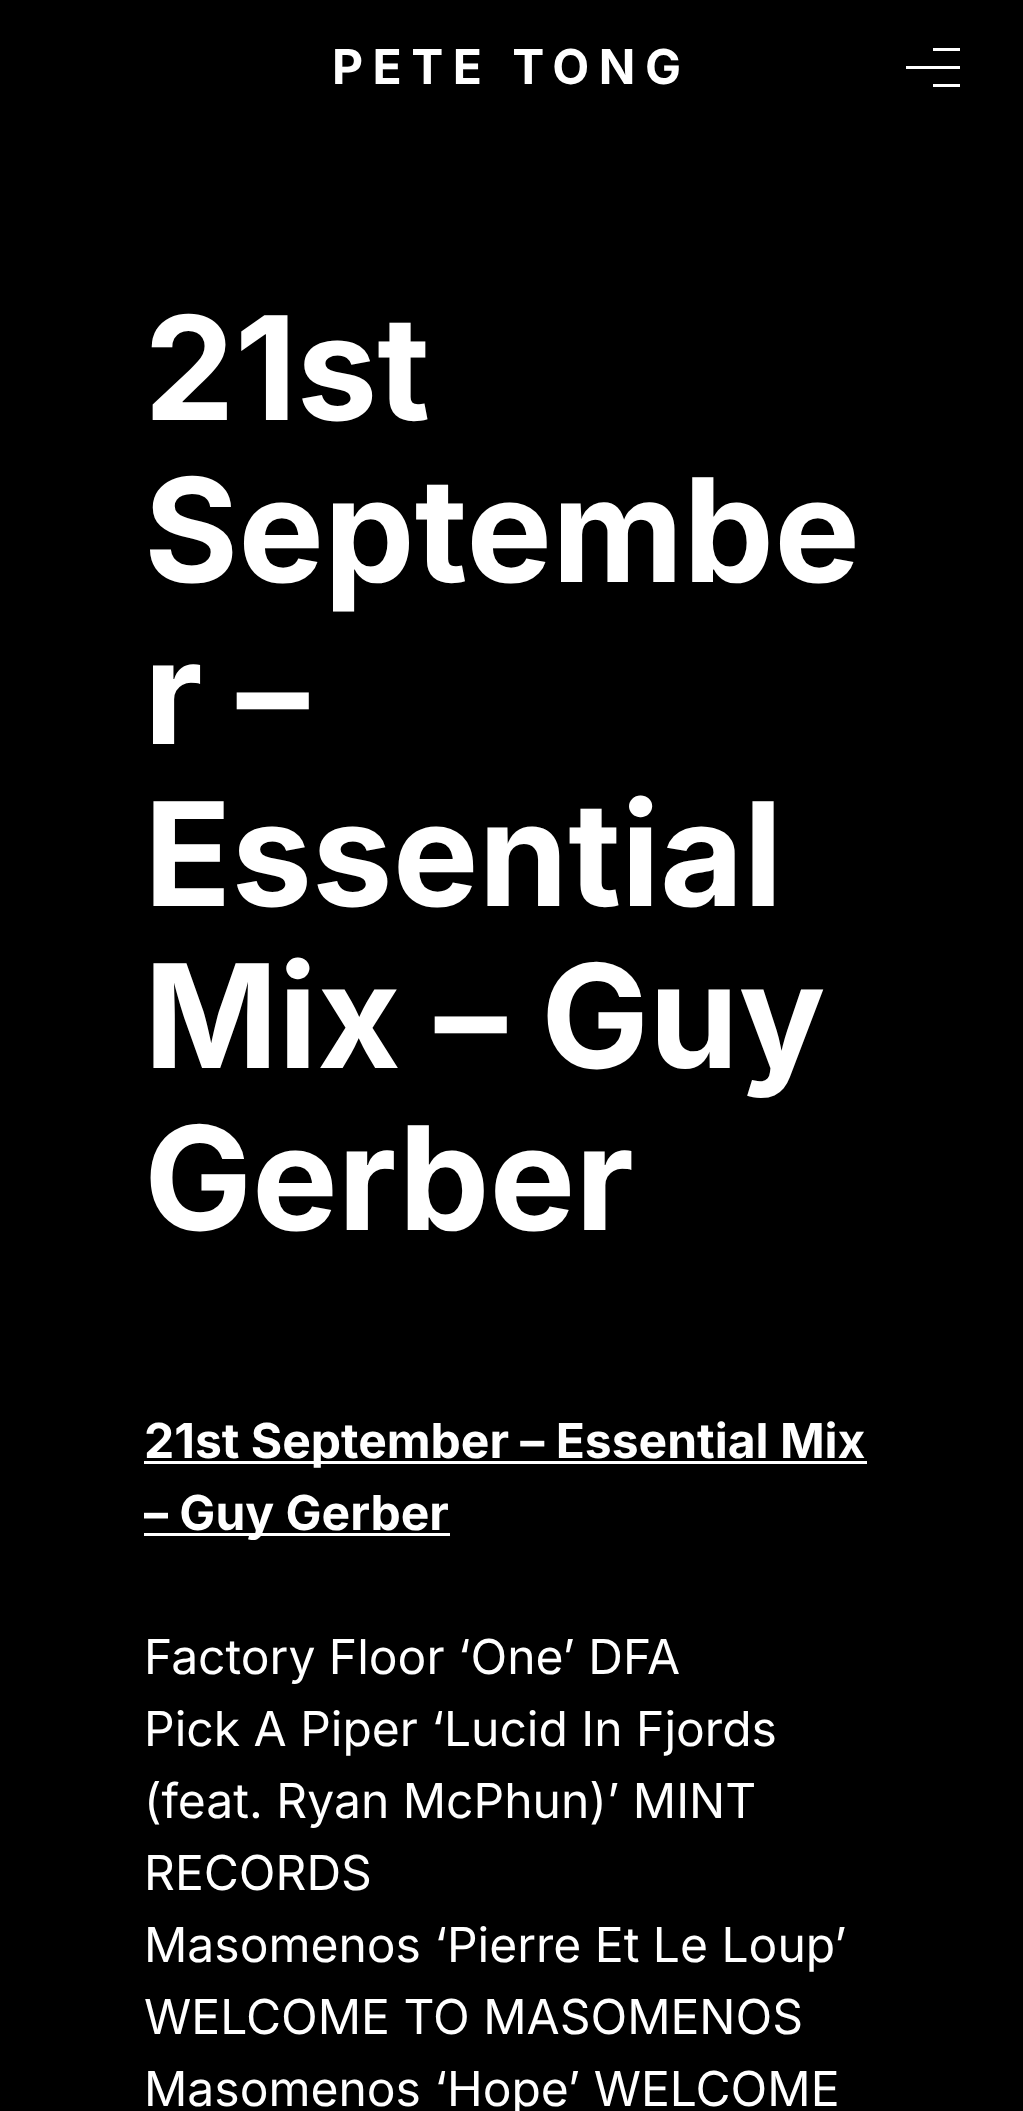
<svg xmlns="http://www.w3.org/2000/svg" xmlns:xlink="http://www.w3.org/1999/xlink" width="1023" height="2111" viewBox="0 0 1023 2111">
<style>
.cls-1{font:bold 48px Inter;letter-spacing:9.5px;fill:#ffffff}
.cls-2{font:bold 144px Inter;fill:#ffffff}
.cls-3{font:bold 48px Inter;fill:#ffffff}
.cls-4{font:48px Inter;fill:#ffffff}
</style>
<rect width="100%" height="100%" fill="#000000"/>
<rect fill="#ffffff" x="144" y="1461" width="723" height="3"/>
<rect fill="#ffffff" x="144" y="1533" width="306" height="3"/>
<rect fill="#ffffff" x="906" y="66" width="54" height="3"/>
<rect fill="#ffffff" x="933" y="48" width="27" height="3"/>
<rect fill="#ffffff" x="933" y="84" width="27" height="3"/>
<text class="cls-1" x="332" y="84">PETE TONG</text>
<text class="cls-2"><tspan x="144" y="420">21st</tspan><tspan x="144" y="582">Septembe</tspan><tspan x="144" y="744">r –</tspan><tspan x="144" y="906">Essential</tspan><tspan x="144" y="1068">Mix – Guy</tspan><tspan x="144" y="1230">Gerber</tspan></text>
<text class="cls-3"><tspan x="144" y="1458">21st September – Essential Mix</tspan><tspan x="144" y="1530">– Guy Gerber</tspan></text>
<text class="cls-4"><tspan x="144" y="1674">Factory Floor ‘One’ DFA</tspan><tspan x="144" y="1746">Pick A Piper ‘Lucid In Fjords</tspan><tspan x="144" y="1818">(feat. Ryan McPhun)’ MINT</tspan><tspan x="144" y="1890">RECORDS</tspan><tspan x="144" y="1962">Masomenos ‘Pierre Et Le Loup’</tspan><tspan x="144" y="2034">WELCOME TO MASOMENOS</tspan><tspan x="144" y="2106">Masomenos ‘Hope’ WELCOME</tspan></text>
</svg>
